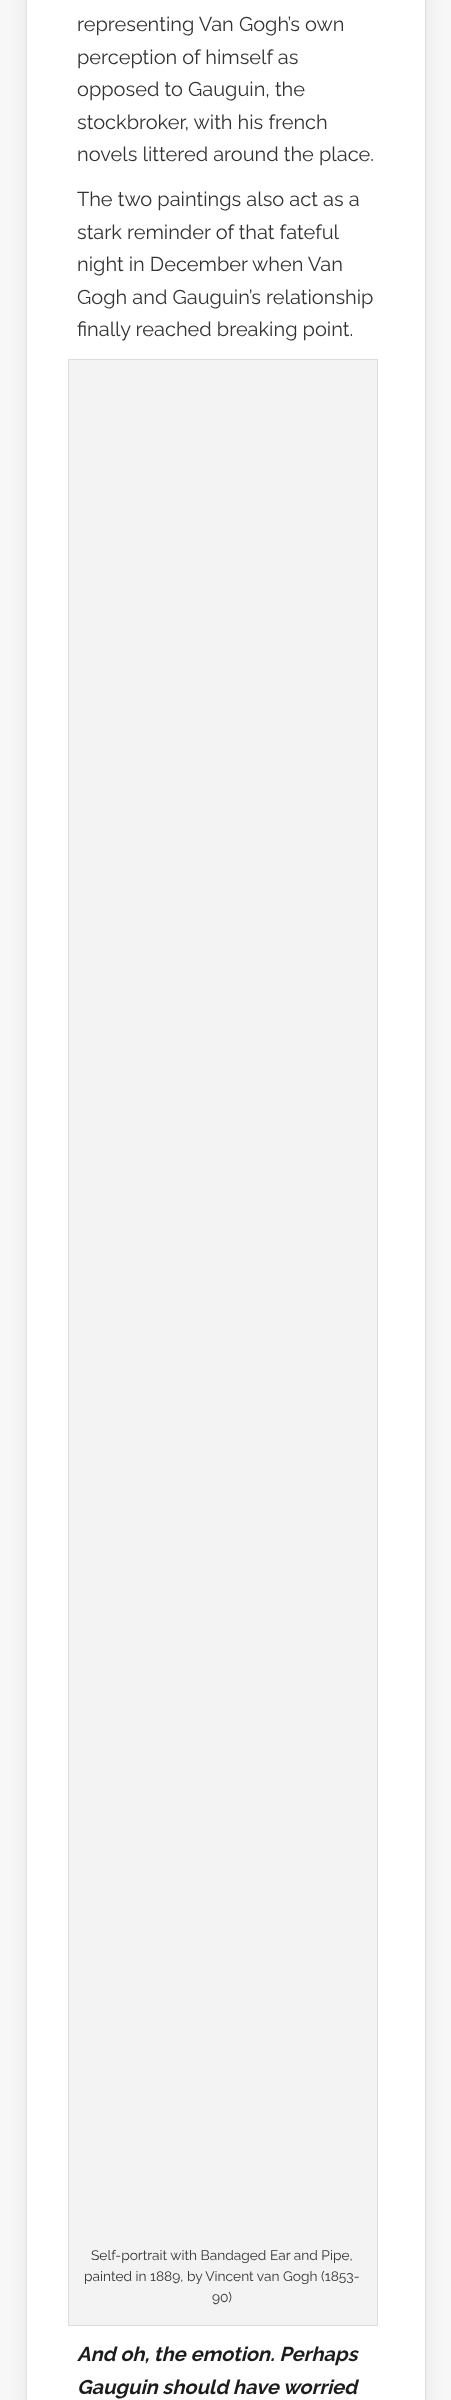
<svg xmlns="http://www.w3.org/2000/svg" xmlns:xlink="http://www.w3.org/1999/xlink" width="451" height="2400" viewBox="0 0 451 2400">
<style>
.cls-1{font:20px Raleway;fill:#333333}
.cls-2{font:13.75px Raleway;fill:#333333}
.cls-3{font:italic bold 20px Raleway;fill:#1c1c1c}
</style>
<rect width="100%" height="100%" fill="#f7f7f7"/>
<rect fill="#000000" fill-opacity="0.07" filter="blur(9.5px)" x="26" y="-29" width="400" height="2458"/>
<rect fill="#ffffff" x="27" y="0" width="398" height="2400"/>
<rect fill="#e0e0e0" x="425" y="0" width="1" height="2400"/>
<rect fill="#e0e0e0" x="26" y="0" width="1" height="2400"/>
<rect fill="#f3f3f3" stroke="#dddddd" x="68.5" y="359.5" width="309" height="1966"/>
<text class="cls-1"><tspan x="77" y="31">representing Van Gogh’s own</tspan><tspan x="77" y="64">perception of himself as</tspan><tspan x="77" y="96">opposed to Gauguin, the</tspan><tspan x="77" y="129">stockbroker, with his french</tspan><tspan x="77" y="161">novels littered around the place.</tspan></text>
<text class="cls-1"><tspan x="77" y="206">The two paintings also act as a</tspan><tspan x="77" y="239">stark reminder of that fateful</tspan><tspan x="77" y="271">night in December when Van</tspan><tspan x="77" y="304">Gogh and Gauguin’s relationship</tspan><tspan x="77" y="336">finally reached breaking point.</tspan></text>
<text class="cls-2" x="91" y="2260">Self-portrait with Bandaged Ear and Pipe,</text>
<text class="cls-2" x="84" y="2281">painted in 1889, by Vincent van Gogh (1853-</text>
<text class="cls-2" x="212" y="2302">90)</text>
<text class="cls-3"><tspan x="77" y="2361">And oh, the emotion. Perhaps</tspan><tspan x="77" y="2394">Gauguin should have worried</tspan></text>
</svg>
